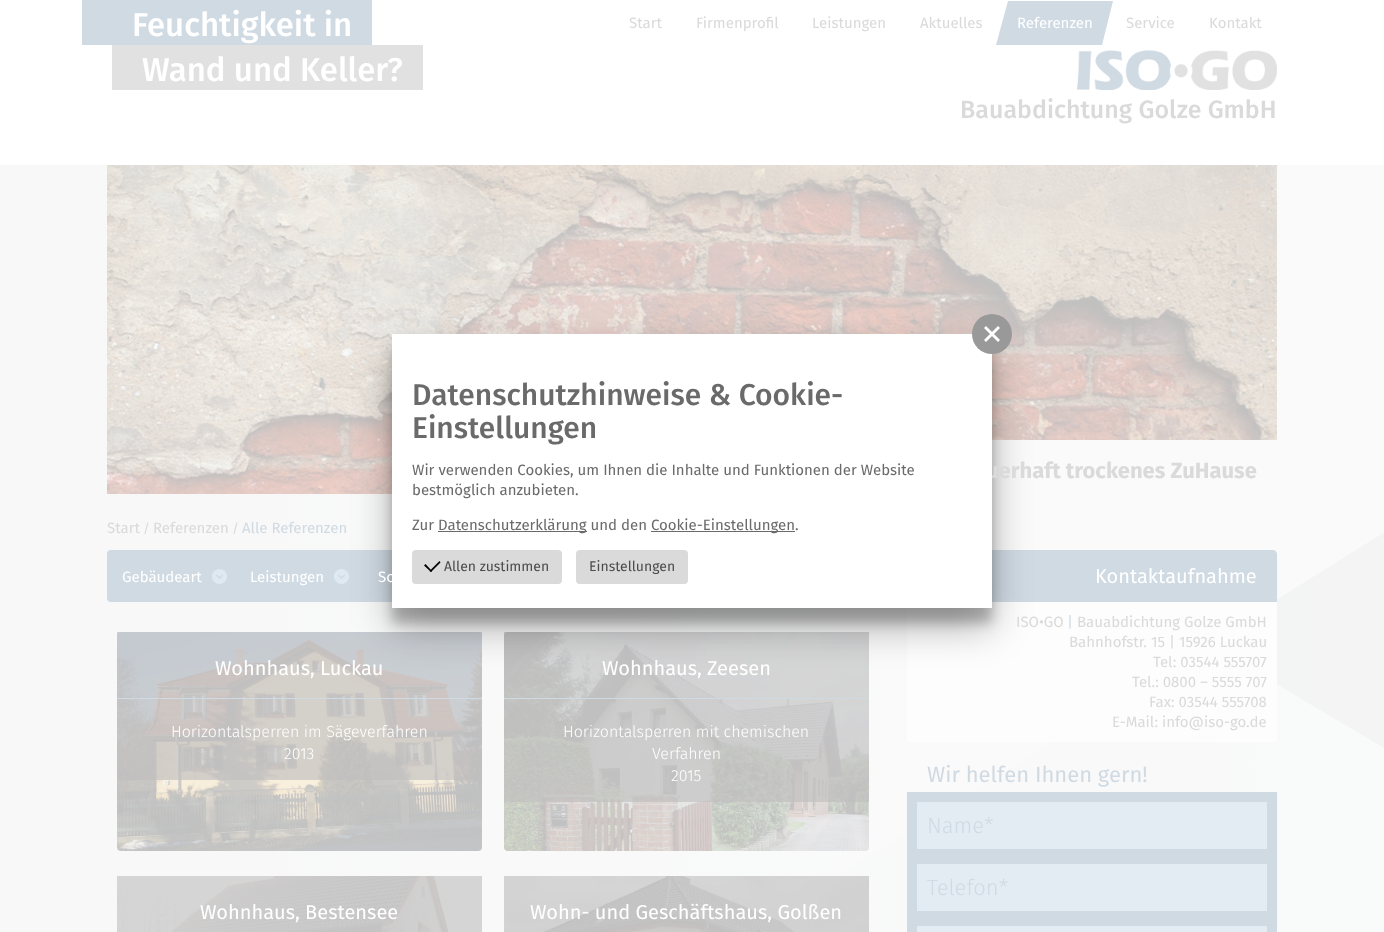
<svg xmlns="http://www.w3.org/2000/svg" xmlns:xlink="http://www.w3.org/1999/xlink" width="1384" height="932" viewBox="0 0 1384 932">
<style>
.cls-1{font:500 33px Fira Sans;fill:#ffffff}
.cls-2{font:15px Fira Sans;fill:#dadada}
.cls-3{font:15px Fira Sans;fill:#ffffff}
.cls-4{font:500 25px Fira Sans;fill:#dadada}
.cls-5{font:bold 22px Fira Sans;fill:#dadada}
.cls-6{font:13px Fira Sans;fill:#dadada}
.cls-7{font:15px Fira Sans;fill:#d0dae3}
.cls-8{font:20px Fira Sans;fill:#ffffff}
.cls-9{font:300 16px Fira Sans;fill:#ffffff}
.cls-10{font:22px Fira Sans;fill:#d0dae3}
.cls-11{font:300 22px Fira Sans;fill:#d0dae3}
.cls-12{font:500 30px Fira Sans;fill:#6a6a6a}
.cls-13{font:15px Fira Sans;fill:#6a6a6a}
.cls-14{font:14px Fira Sans;fill:#4b4b4b}
</style>
<defs>
<clipPath id="clip1"><rect x="107" y="165" width="1170" height="329"/></clipPath>
</defs>
<rect width="100%" height="100%" fill="#ffffff"/>
<rect fill="#d0dae3" x="82" y="0" width="290" height="45"/>
<path fill="#d0dae3" d="M1008 1H1113L1102 45H996Z"/>
<rect fill="#e1e1e2" x="112" y="45" width="311" height="45"/>
<image xlink:href="image0.png" x="1077" y="50" width="200" height="40"/>
<image xlink:href="image1.png" x="0" y="165" width="1384" height="767"/>
<image xlink:href="image2.png" x="107" y="165" width="1170" height="329"/>
<g clip-path="url(#clip1)">
<path fill="#fafafa" d="M709 440H1294L1280 495H695Z"/>
</g>
<rect fill="#d0dae3" x="107" y="550" width="770" height="52" rx="4"/>
<image xlink:href="image3.png" x="212" y="569" width="15" height="15"/>
<image xlink:href="image3.png" x="334" y="569" width="15" height="15"/>
<image xlink:href="image4.png" x="117" y="632" width="365" height="219"/>
<rect fill="#c0bfbf" fill-opacity="0.65" x="117" y="632" width="365" height="148"/>
<rect fill="#d0dae3" x="117" y="698" width="365" height="1"/>
<image xlink:href="image5.png" x="504" y="632" width="365" height="219"/>
<rect fill="#c0bfbf" fill-opacity="0.65" x="504" y="632" width="365" height="170"/>
<rect fill="#d0dae3" x="504" y="698" width="365" height="1"/>
<image xlink:href="image6.png" x="117" y="876" width="365" height="56"/>
<rect fill="#c0bfbf" fill-opacity="0.65" x="117" y="876" width="365" height="56"/>
<image xlink:href="image7.png" x="504" y="876" width="365" height="56"/>
<rect fill="#c0bfbf" fill-opacity="0.65" x="504" y="876" width="365" height="56"/>
<rect fill="#fdfdfd" x="907" y="550" width="370" height="192" rx="4"/>
<path fill="#d0dae3" d="M911 550H1273C1275 550 1277 552 1277 554V602H907V554C907 552 909 550 911 550Z"/>
<rect fill="#d0dae3" x="907" y="792" width="370" height="140"/>
<rect fill="#e3ecf3" x="917" y="802" width="350" height="47"/>
<rect fill="#e3ecf3" x="917" y="864" width="350" height="47"/>
<rect fill="#e3ecf3" x="917" y="926" width="350" height="6"/>
<rect fill="#000000" fill-opacity="0.22" filter="blur(6px)" x="392" y="349" width="600" height="274"/>
<rect fill="#000000" fill-opacity="0.3" filter="blur(19px)" x="392" y="353" width="600" height="274"/>
<text class="cls-1" x="132" y="36">Feuchtigkeit in</text>
<text class="cls-2" x="629" y="28">Start</text>
<text class="cls-2" x="696" y="28">Firmenprofil</text>
<text class="cls-2" x="812" y="28">Leistungen</text>
<text class="cls-2" x="920" y="28">Aktuelles</text>
<text class="cls-3" x="1017" y="28">Referenzen</text>
<text class="cls-2" x="1126" y="28">Service</text>
<text class="cls-2" x="1209" y="28">Kontakt</text>
<text class="cls-1" x="142" y="81">Wand und Keller?</text>
<text class="cls-4" x="960" y="118">Bauabdichtung Golze GmbH</text>
<text class="cls-5" x="986" y="478">uerhaft trockenes ZuHause</text>
<text class="cls-2" x="107" y="533">Start</text>
<text class="cls-6" x="143" y="533">/</text>
<text class="cls-2" x="153" y="533">Referenzen</text>
<text class="cls-6" x="232" y="533">/</text>
<text class="cls-7" x="242" y="533">Alle Referenzen</text>
<text class="cls-3" x="122" y="582">Gebäudeart</text>
<text class="cls-3" x="250" y="582">Leistungen</text>
<text class="cls-3" x="378" y="582">Sc</text>
<text class="cls-8" x="215" y="675">Wohnhaus, Luckau</text>
<text class="cls-9" x="171" y="737">Horizontalsperren im Sägeverfahren</text>
<text class="cls-9" x="284" y="759">2013</text>
<text class="cls-8" x="602" y="675">Wohnhaus, Zeesen</text>
<text class="cls-9" x="563" y="737">Horizontalsperren mit chemischen</text>
<text class="cls-9" x="652" y="759">Verfahren</text>
<text class="cls-9" x="671" y="781">2015</text>
<text class="cls-8" x="200" y="919">Wohnhaus, Bestensee</text>
<text class="cls-8" x="530" y="919">Wohn- und Geschäftshaus, Golßen</text>
<text class="cls-8" x="1095" y="583">Kontaktaufnahme</text>
<text class="cls-2" x="1016" y="627">ISO•GO</text>
<text class="cls-7" x="1067" y="627">|</text>
<text class="cls-2" x="1077" y="627">Bauabdichtung Golze GmbH</text>
<text class="cls-2" x="1069" y="647">Bahnhofstr. 15 | 15926 Luckau</text>
<text class="cls-2" x="1153" y="667">Tel: 03544 555707</text>
<text class="cls-2" x="1132" y="687">Tel.: 0800 – 5555 707</text>
<text class="cls-2" x="1149" y="707">Fax: 03544 555708</text>
<text class="cls-2" x="1112" y="727">E-Mail: info@iso-go.de</text>
<text class="cls-10" x="927" y="782">Wir helfen Ihnen gern!</text>
<text class="cls-11" x="927" y="833">Name*</text>
<text class="cls-11" x="927" y="895">Telefon*</text>
<rect fill="#ffffff" x="392" y="334" width="600" height="274"/>
<circle fill="#999999" cx="992" cy="334" r="20"/>
<path fill="#ffffff" d="M986 326L1000 340L998 342L984 328Z"/>
<path fill="#ffffff" d="M984 340L998 326L1000 328L986 342Z"/>
<text class="cls-12"><tspan x="412" y="405">Datenschutzhinweise &amp; Cookie-</tspan><tspan x="412" y="438">Einstellungen</tspan></text>
<text class="cls-13"><tspan x="412" y="475">Wir verwenden Cookies, um Ihnen die Inhalte und Funktionen der Website</tspan><tspan x="412" y="495">bestmöglich anzubieten.</tspan></text>
<text class="cls-13" x="412" y="530">Zur</text>
<rect fill="#6a6a6a" x="438" y="531" width="149" height="1"/>
<text class="cls-13" x="438" y="530">Datenschutzerklärung und den</text>
<rect fill="#6a6a6a" x="651" y="531" width="144" height="1"/>
<text class="cls-13" x="651" y="530">Cookie-Einstellungen.</text>
<rect fill="#dadada" x="412" y="550" width="150" height="34" rx="4"/>
<path fill="#000000" d="M439.5 561L440.5 562.5L431 572L429.5 571Z"/>
<path fill="#000000" d="M425.5 564L432 571L431 572L424 565.5Z"/>
<text class="cls-14" x="444" y="571">Allen zustimmen</text>
<rect fill="#dadada" x="576" y="550" width="112" height="34" rx="4"/>
<text class="cls-14" x="589" y="571">Einstellungen</text>
</svg>
